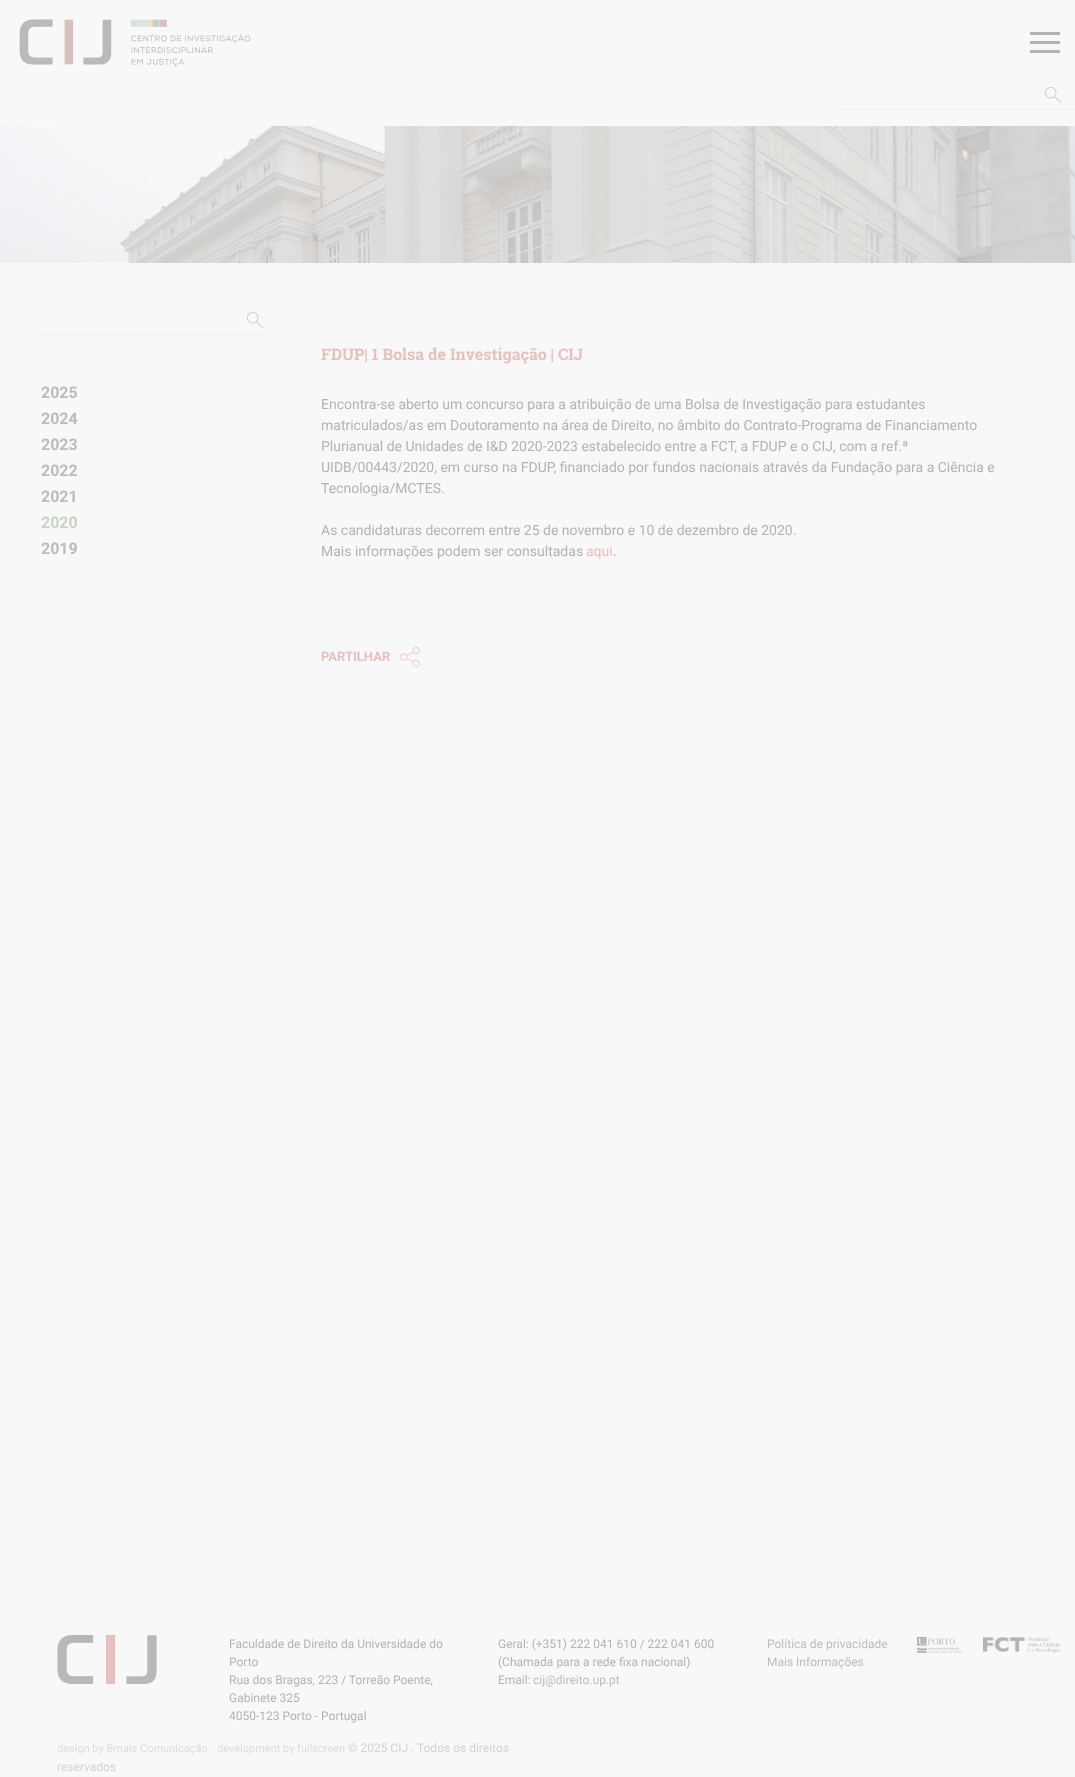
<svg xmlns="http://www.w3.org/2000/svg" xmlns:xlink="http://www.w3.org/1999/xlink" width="1075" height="1777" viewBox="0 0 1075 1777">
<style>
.cls-1{font:bold 16px Roboto;fill:#bcbcbc}
.cls-2{font:bold 16px Roboto;fill:#cbd2c8}
.cls-3{font:bold 16px Roboto Slab;fill:#e6c0bf}
.cls-4{font:14px Roboto;fill:#b3b3b3}
.cls-5{font:14px Roboto;fill:#e6c0bf}
.cls-6{font:bold 13px Roboto;fill:#e6c0bf}
.cls-7{font:12px Roboto;fill:#b3b3b3}
.cls-8{font:12px Roboto;fill:#bcbcbc}
.cls-9{font:11px Roboto;fill:#dcdcdc}
.cls-10{font:12px Roboto;fill:#d0d2d5}
</style>
<rect width="100%" height="100%" fill="#f8f8f8"/>
<image xlink:href="image0.png" x="19" y="19" width="232" height="48"/>
<rect fill="#b3b3b3" x="1030" y="41" width="30" height="3"/>
<rect fill="#b3b3b3" x="1030" y="32" width="30" height="3"/>
<rect fill="#b3b3b3" x="1030" y="50" width="30" height="3"/>
<image xlink:href="image1.png" x="1045" y="87" width="16" height="16"/>
<rect fill="#f0f0f0" x="835" y="109" width="240" height="1"/>
<image xlink:href="image2.png" x="0" y="126" width="1075" height="137"/>
<image xlink:href="image3.png" x="247" y="312" width="16" height="16"/>
<rect fill="#f0f0f0" x="41" y="334" width="227" height="1"/>
<image xlink:href="image4.png" x="400" y="647" width="20" height="20"/>
<image xlink:href="image5.png" x="57" y="1635" width="100" height="49"/>
<image xlink:href="image6.png" x="917" y="1637" width="45" height="16"/>
<image xlink:href="image7.png" x="983" y="1637" width="77" height="16"/>
<text class="cls-1"><tspan x="41" y="398">2025</tspan><tspan x="41" y="424">2024</tspan><tspan x="41" y="450">2023</tspan><tspan x="41" y="476">2022</tspan><tspan x="41" y="502">2021</tspan></text>
<text class="cls-2" x="41" y="528">2020</text>
<text class="cls-1" x="41" y="554">2019</text>
<text class="cls-3" x="321" y="360">FDUP| 1 Bolsa de Investigação | CIJ</text>
<text class="cls-4"><tspan x="321" y="409">Encontra-se aberto um concurso para a atribuição de uma Bolsa de Investigação para estudantes</tspan><tspan x="321" y="430">matriculados/as em Doutoramento na área de Direito, no âmbito do Contrato-Programa de Financiamento</tspan><tspan x="321" y="451">Plurianual de Unidades de I&amp;D 2020-2023 estabelecido entre a FCT, a FDUP e o CIJ, com a ref.ª</tspan><tspan x="321" y="472">UIDB/00443/2020, em curso na FDUP, financiado por fundos nacionais através da Fundação para a Ciência e</tspan><tspan x="321" y="493">Tecnologia/MCTES.</tspan></text>
<text class="cls-4"><tspan x="321" y="535">As candidaturas decorrem entre 25 de novembro e 10 de dezembro de 2020.</tspan><tspan x="321" y="556">Mais informações podem ser consultadas</tspan></text>
<text class="cls-5" x="586" y="556">aqui</text>
<text class="cls-4" x="613" y="556">.</text>
<text class="cls-6" x="321" y="661">PARTILHAR</text>
<text class="cls-7"><tspan x="229" y="1648">Faculdade de Direito da Universidade do</tspan><tspan x="229" y="1666">Porto</tspan><tspan x="229" y="1684">Rua dos Bragas, 223 / Torreão Poente,</tspan><tspan x="229" y="1702">Gabinete 325</tspan><tspan x="229" y="1720">4050-123 Porto - Portugal</tspan></text>
<text class="cls-7"><tspan x="498" y="1648">Geral: (+351) 222 041 610 / 222 041 600</tspan><tspan x="498" y="1666">(Chamada para a rede fixa nacional)</tspan><tspan x="498" y="1684">Email:</tspan></text>
<text class="cls-8" x="533" y="1684">cij@direito.up.pt</text>
<text class="cls-8"><tspan x="767" y="1648">Política de privacidade</tspan><tspan x="767" y="1666">Mais Informações</tspan></text>
<text class="cls-9" x="57" y="1752">design by Bmais Comunicação</text>
<text class="cls-9" x="217" y="1752">development by fullscreen</text>
<text class="cls-10" x="348" y="1752">© 2025 CIJ . Todos os direitos</text>
<text class="cls-10" x="57" y="1771">reservados</text>
</svg>
